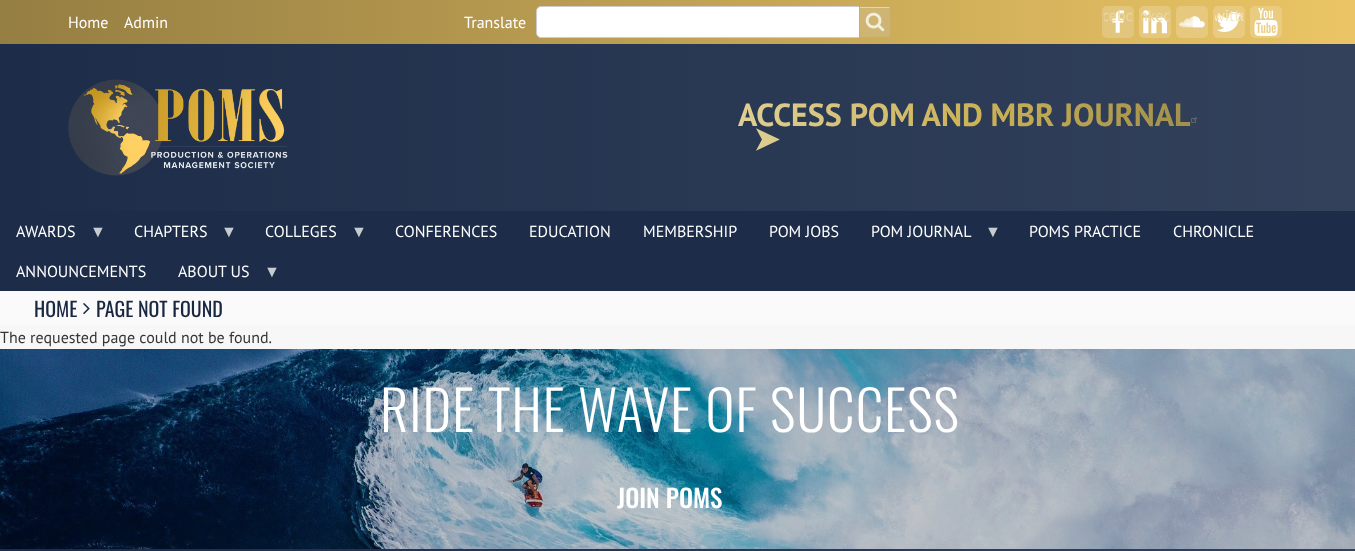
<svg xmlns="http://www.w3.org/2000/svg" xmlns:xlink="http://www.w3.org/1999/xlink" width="1355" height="551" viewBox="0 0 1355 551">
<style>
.cls-1{font:16px PT Sans;fill:#ffffff}
.cls-2{font:16px PT Sans;fill:#ebd6a3}
.cls-3{font:16px PT Sans;fill:#f4e6c1}
.cls-4{font:bold 32px PT Sans;fill:url(#g4)}
.cls-5{font:bold 32px DejaVu Sans;fill:url(#g5)}
.cls-6{font:16px Liberation Sans;fill:#c7cbd2}
.cls-7{font:20px Oswald;fill:#192741}
.cls-8{font:16px PT Sans;fill:#363636}
.cls-9{font:300 55px Oswald;letter-spacing:1.1px;fill:#ffffff}
.cls-10{font:500 25px Oswald;fill:#ffffff}
</style>
<defs>
<linearGradient id="g1" gradientUnits="userSpaceOnUse" x1="0" y1="22" x2="1355" y2="22"><stop offset="0" stop-color="#957e42"/><stop offset="1" stop-color="#ebc565"/></linearGradient>
<linearGradient id="g2" gradientUnits="userSpaceOnUse" x1="0" y1="128" x2="1355" y2="127"><stop offset="0" stop-color="#1d2d49"/><stop offset="1" stop-color="#33415b"/></linearGradient>
<linearGradient id="g3" gradientUnits="userSpaceOnUse" x1="0" y1="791" x2="1355" y2="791"><stop offset="0" stop-color="#1d2d49"/><stop offset="1" stop-color="#33415b"/></linearGradient>
<clipPath id="clip1"><rect x="1104" y="8" width="28" height="28"/></clipPath>
<clipPath id="clip2"><rect x="1141" y="8" width="28" height="28"/></clipPath>
<clipPath id="clip3"><rect x="1215" y="8" width="28" height="28"/></clipPath>
<linearGradient id="g4" gradientUnits="userSpaceOnUse" x1="738" y1="127" x2="1226" y2="127"><stop offset="0" stop-color="#dfcf95"/><stop offset="0.5" stop-color="#cbb256"/><stop offset="1" stop-color="#9a8949"/></linearGradient>
<linearGradient id="g5" gradientUnits="userSpaceOnUse" x1="738" y1="127" x2="1226" y2="127"><stop offset="0" stop-color="#dfcf95"/><stop offset="0.5" stop-color="#cbb256"/><stop offset="1" stop-color="#998948"/></linearGradient>
</defs>
<rect width="100%" height="100%" fill="#f7f7f7"/>
<rect fill="url(#g1)" x="0" y="0" width="1355" height="44"/>
<rect fill="#ffffff" stroke="#cccccc" x="536.5" y="6.5" width="354" height="31" rx="4.5"/>
<path fill="#c9ad64" fill-opacity="0.9" d="M859 6H889C890 6 891 7 891 8V36C891 37 890 38 889 38H859Z"/>
<image xlink:href="image0.png" x="865" y="12" width="20" height="20"/>
<path fill="#ffffff" fill-opacity="0.45" d="M860 8H890V9V8C890 7.5 889.5 7 889 7H860Z"/>
<path fill="none" stroke="#c9ad64" stroke-opacity="0.9" d="M859.5 6.5H889C890 6.5 890.5 7 890.5 8V36C890.5 37 890 37.5 889 37.5H859.5Z"/>
<rect fill="#e3c67d" x="1102" y="6" width="32" height="32" rx="5"/>
<image xlink:href="image1.png" x="1112" y="10" width="12" height="23"/>
<rect fill="#e5c87e" x="1139" y="6" width="32" height="32" rx="5"/>
<image xlink:href="image2.png" x="1143" y="10" width="24" height="24"/>
<rect fill="#e6c97f" x="1176" y="6" width="32" height="32" rx="5"/>
<image xlink:href="image3.png" x="1179" y="16" width="26" height="12"/>
<rect fill="#e8cb80" x="1213" y="6" width="32" height="32" rx="5"/>
<image xlink:href="image4.png" x="1217" y="12" width="25" height="20"/>
<rect fill="#eacc80" x="1250" y="6" width="32" height="32" rx="5"/>
<image xlink:href="image5.png" x="1254" y="8" width="24" height="28"/>
<rect fill="url(#g2)" x="0" y="44" width="1355" height="167"/>
<image xlink:href="image6.png" x="68" y="79" width="220" height="97"/>
<image xlink:href="image7.png" x="1191" y="117" width="6" height="6"/>
<rect fill="#1d2d49" x="0" y="211" width="1355" height="80"/>
<rect fill="#fafafa" x="0" y="291" width="1355" height="34"/>
<image xlink:href="image8.png" x="83" y="303" width="7" height="12"/>
<image xlink:href="image9.png" x="0" y="349" width="1355" height="200"/>
<rect fill="url(#g3)" x="0" y="549" width="1355" height="2"/>
<text class="cls-1" x="68" y="28">Home</text>
<text class="cls-1" x="124" y="28">Admin</text>
<text class="cls-1" x="464" y="28">Translate</text>
<g clip-path="url(#clip1)">
<text class="cls-2" x="1102" y="21">cebo</text>
</g>
<g clip-path="url(#clip2)">
<text class="cls-2" x="1139" y="21">nked</text>
</g>
<g clip-path="url(#clip3)">
<text class="cls-3" x="1213" y="21">witte</text>
</g>
<text class="cls-4" x="738" y="126">ACCESS POM AND MBR JOURNAL</text>
<text class="cls-5" x="753" y="150">➤</text>
<text class="cls-1" x="16" y="237">AWARDS</text>
<text class="cls-6" x="90" y="237">▼</text>
<text class="cls-1" x="134" y="237">CHAPTERS</text>
<text class="cls-6" x="221" y="237">▼</text>
<text class="cls-1" x="265" y="237">COLLEGES</text>
<text class="cls-6" x="351" y="237">▼</text>
<text class="cls-1" x="395" y="237">CONFERENCES</text>
<text class="cls-1" x="529" y="237">EDUCATION</text>
<text class="cls-1" x="643" y="237">MEMBERSHIP</text>
<text class="cls-1" x="769" y="237">POM JOBS</text>
<text class="cls-1" x="871" y="237">POM JOURNAL</text>
<text class="cls-6" x="985" y="237">▼</text>
<text class="cls-1" x="1029" y="237">POMS PRACTICE</text>
<text class="cls-1" x="1173" y="237">CHRONICLE</text>
<text class="cls-1" x="16" y="277">ANNOUNCEMENTS</text>
<text class="cls-1" x="178" y="277">ABOUT US</text>
<text class="cls-6" x="264" y="277">▼</text>
<text class="cls-7" x="34" y="317">HOME</text>
<text class="cls-7" x="96" y="317">PAGE NOT FOUND</text>
<text class="cls-8" x="0" y="343">The requested page could not be found.</text>
<text class="cls-9" x="380" y="432">RIDE THE WAVE OF SUCCESS</text>
<text class="cls-10" x="617" y="508">JOIN POMS</text>
</svg>
